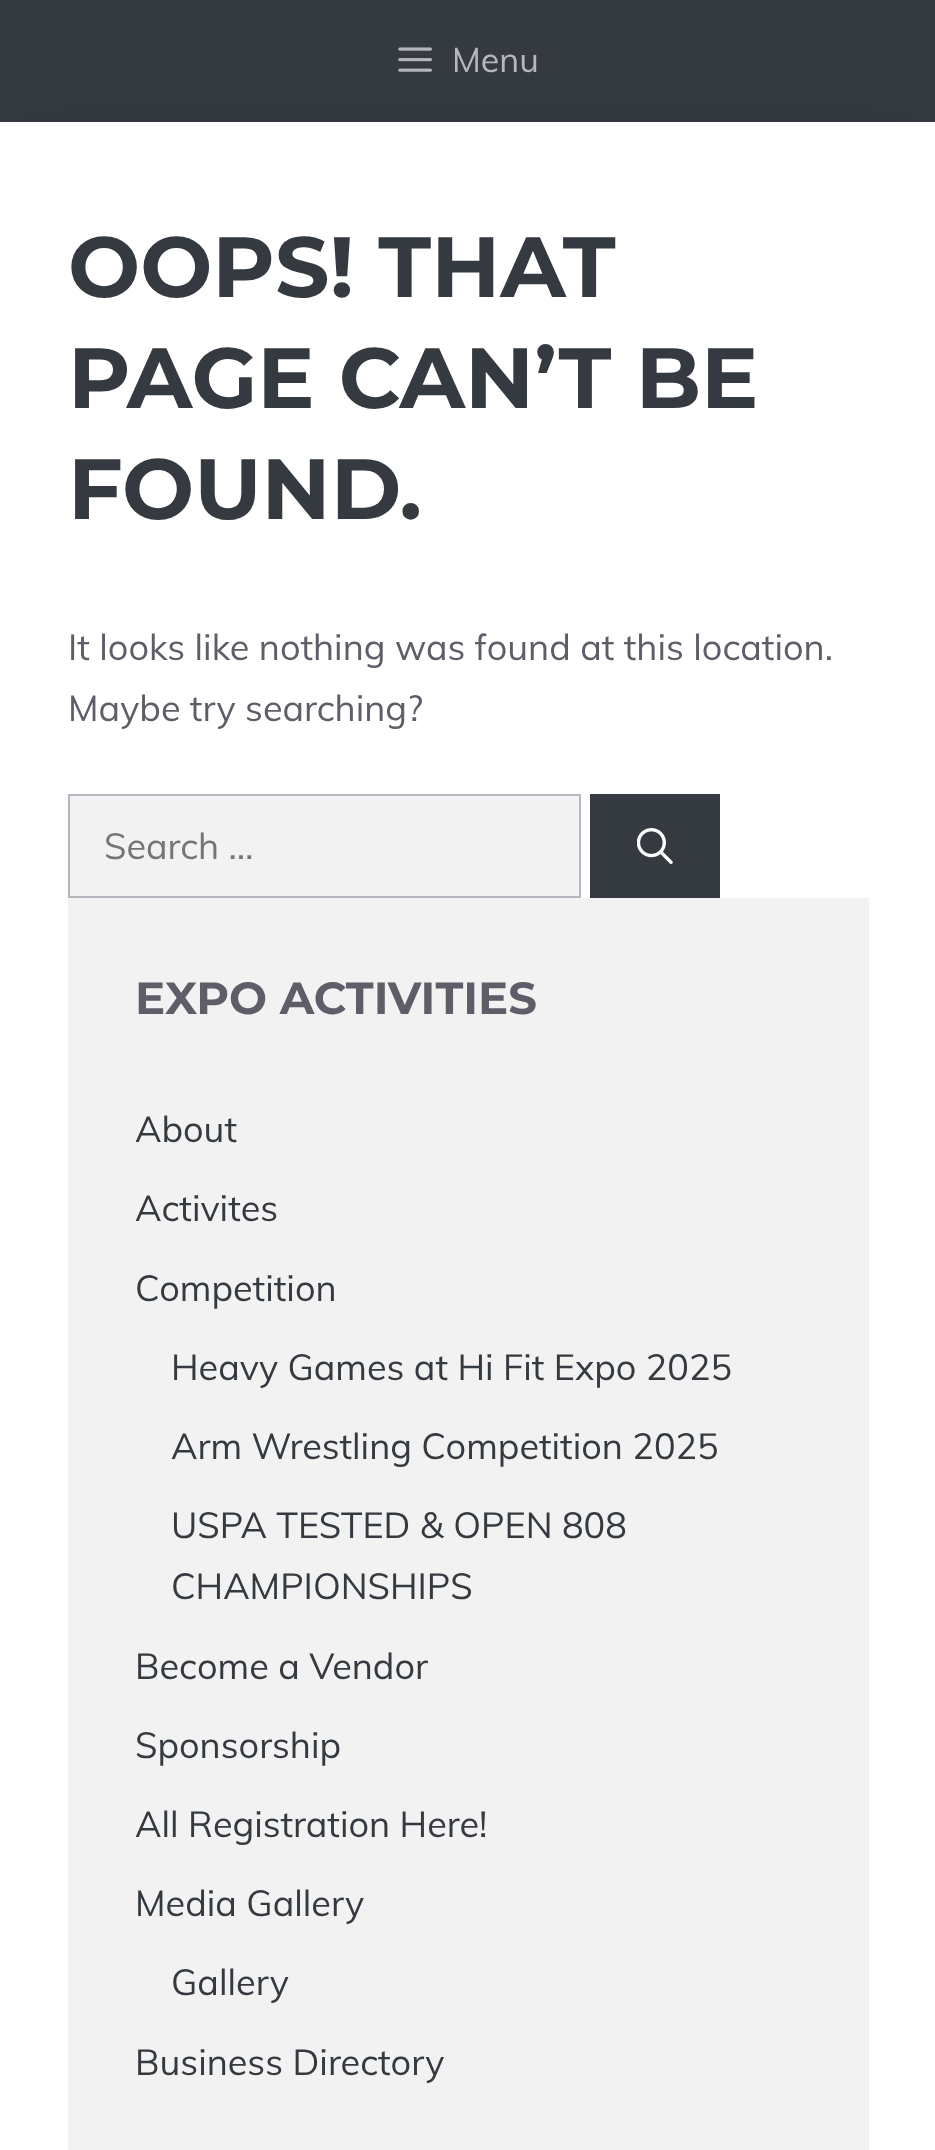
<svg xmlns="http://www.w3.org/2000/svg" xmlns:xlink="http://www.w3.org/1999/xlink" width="935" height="2150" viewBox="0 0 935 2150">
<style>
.cls-1{font:34px Muli;fill:#b5b7bf}
.cls-2{font:bold 85.5px Montserrat;fill:#343a40}
.cls-3{font:36px Muli;fill:#5e5e69}
.cls-4{font:36px Muli;fill:#757575}
.cls-5{font:bold 45px Montserrat;fill:#5e5e69}
.cls-6{font:36px Muli;fill:#343a40}
</style>
<rect width="100%" height="100%" fill="#343a40"/>
<image xlink:href="image0.png" x="398" y="47" width="34" height="25"/>
<rect fill="#000000" fill-opacity="0.3" filter="blur(22.5px)" x="23" y="144" width="891" height="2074"/>
<rect fill="#ffffff" x="0" y="122" width="935" height="2028"/>
<rect fill="#f2f2f2" stroke="#b5b7bf" stroke-width="2" x="69" y="795" width="511" height="102"/>
<rect fill="#343a40" x="590" y="794" width="130" height="104"/>
<image xlink:href="image1.png" x="637" y="828" width="36" height="36"/>
<rect fill="#f2f2f2" x="68" y="898" width="801" height="1252"/>
<text class="cls-1" x="452" y="72">Menu</text>
<text class="cls-2"><tspan x="68" y="297">OOPS! THAT</tspan><tspan x="68" y="408">PAGE CAN’T BE</tspan><tspan x="68" y="519">FOUND.</tspan></text>
<text class="cls-3"><tspan x="68" y="660">It looks like nothing was found at this location.</tspan><tspan x="68" y="721">Maybe try searching?</tspan></text>
<text class="cls-4" x="104" y="859">Search …</text>
<text class="cls-5" x="135" y="1014">EXPO ACTIVITIES</text>
<text class="cls-6" x="135" y="1142">About</text>
<text class="cls-6" x="135" y="1221">Activites</text>
<text class="cls-6" x="135" y="1301">Competition</text>
<text class="cls-6" x="171" y="1380">Heavy Games at Hi Fit Expo 2025</text>
<text class="cls-6" x="171" y="1459">Arm Wrestling Competition 2025</text>
<text class="cls-6"><tspan x="171" y="1538">USPA TESTED &amp; OPEN 808</tspan><tspan x="171" y="1599">CHAMPIONSHIPS</tspan></text>
<text class="cls-6" x="135" y="1679">Become a Vendor</text>
<text class="cls-6" x="135" y="1758">Sponsorship</text>
<text class="cls-6" x="135" y="1837">All Registration Here!</text>
<text class="cls-6" x="135" y="1916">Media Gallery</text>
<text class="cls-6" x="171" y="1995">Gallery</text>
<text class="cls-6" x="135" y="2075">Business Directory</text>
</svg>
